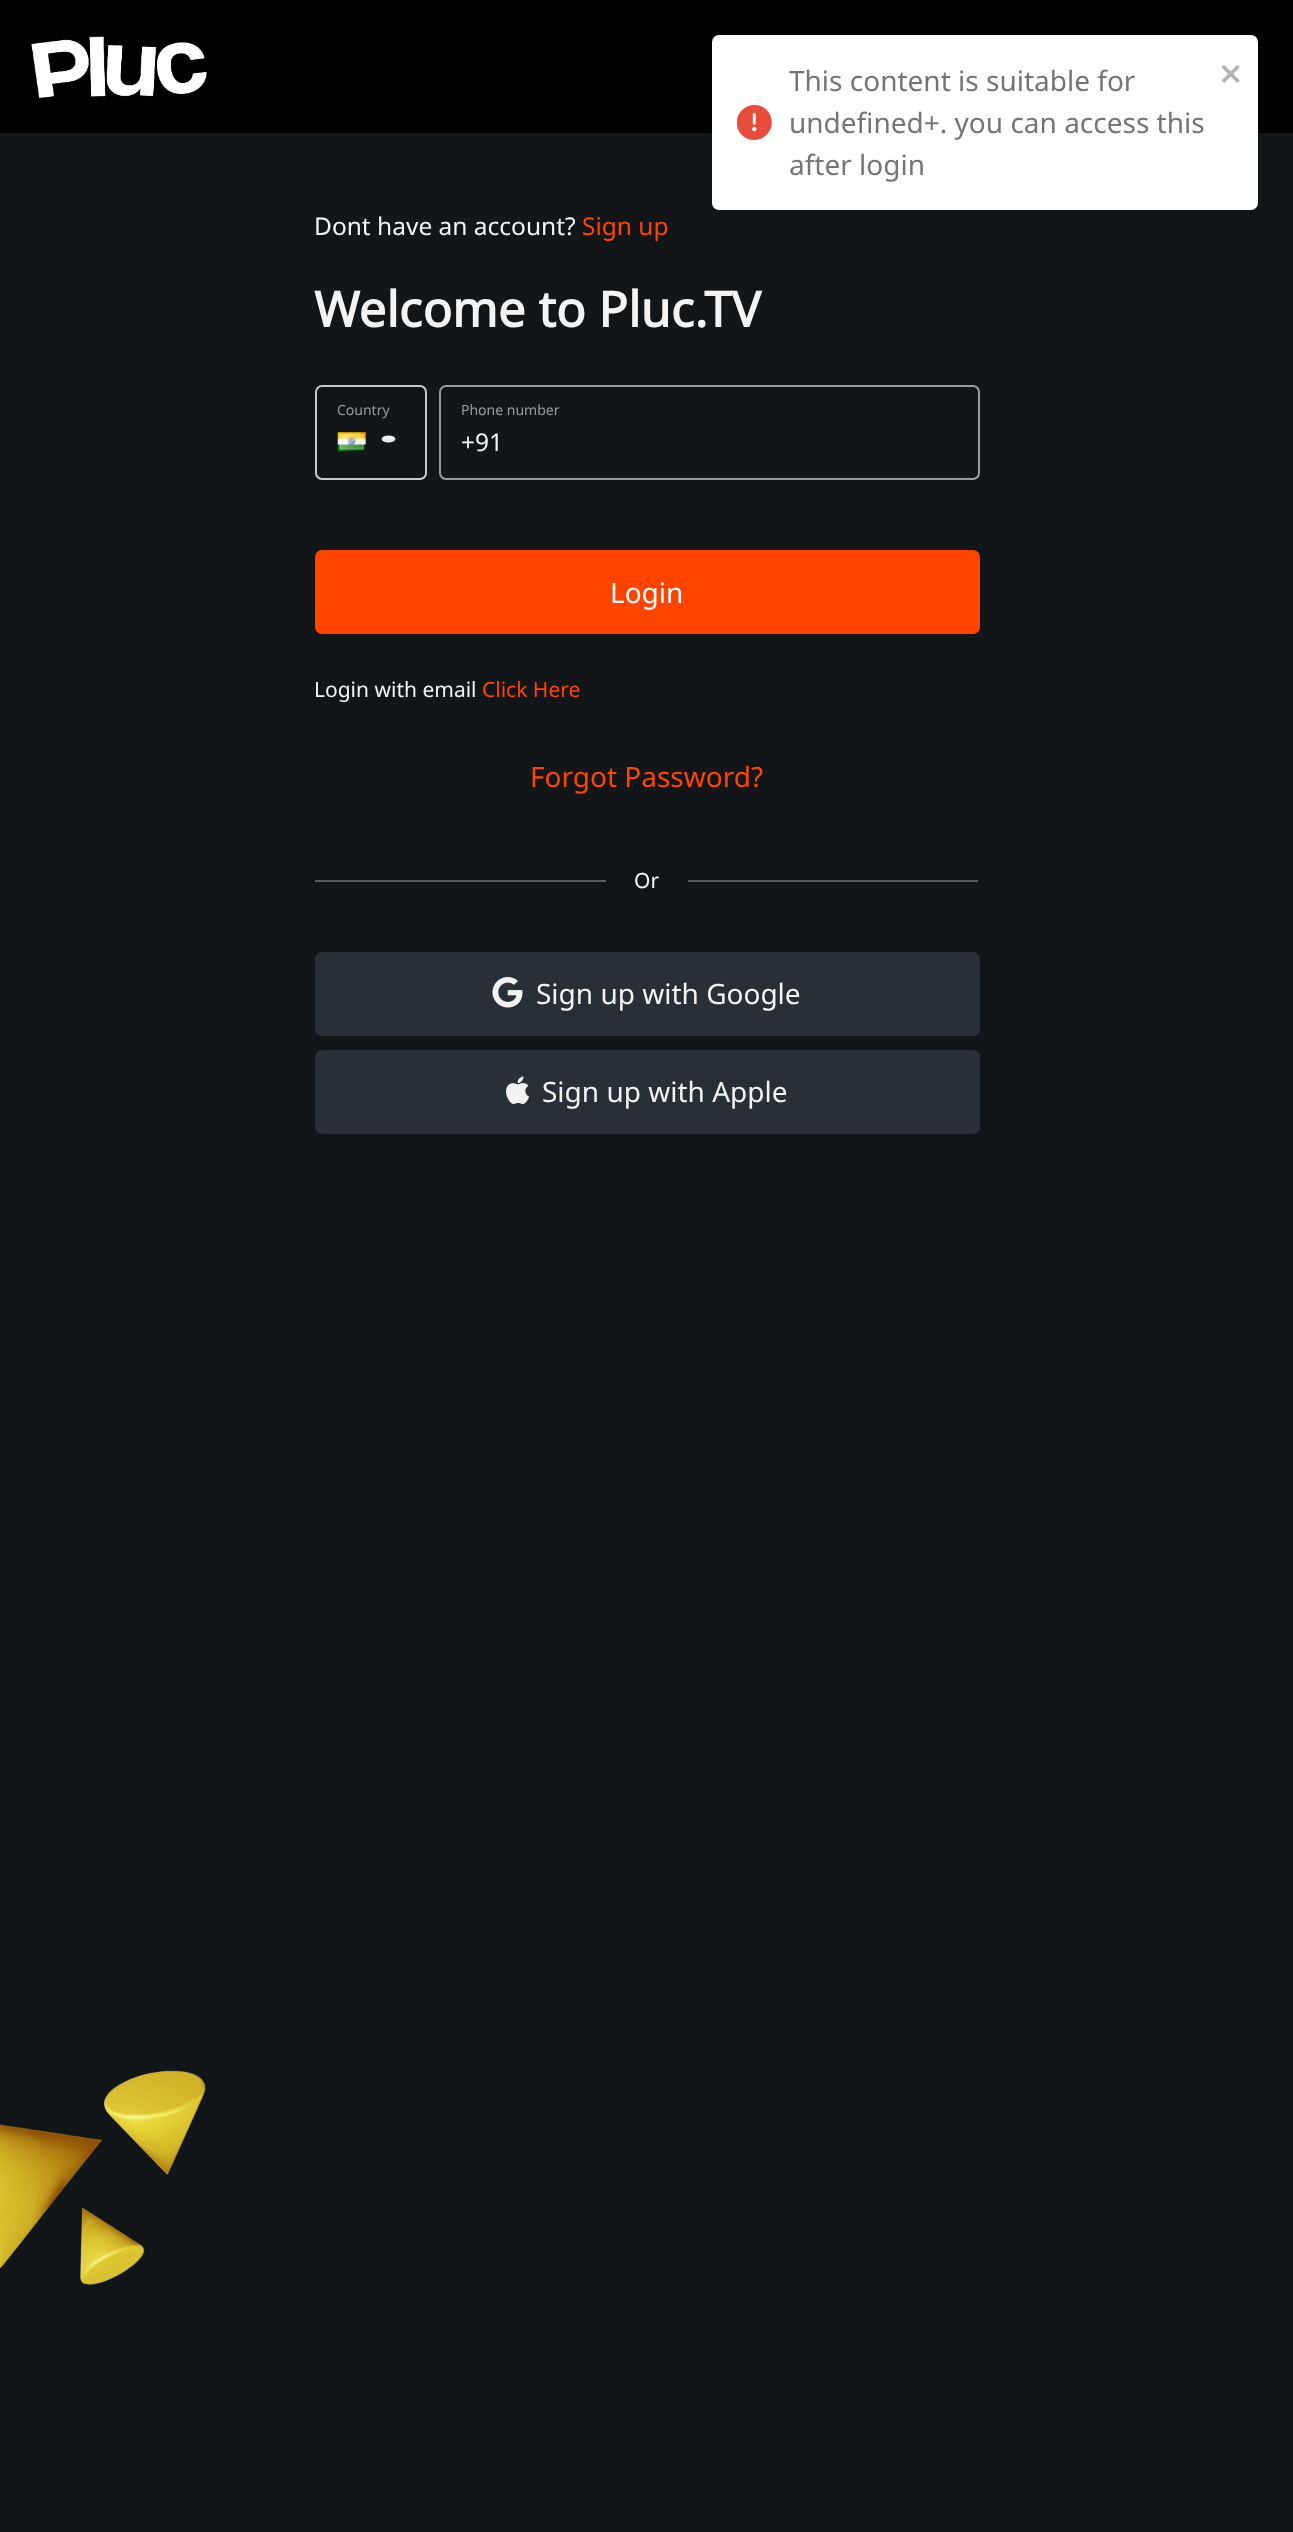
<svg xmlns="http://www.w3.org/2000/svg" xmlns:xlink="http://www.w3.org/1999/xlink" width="1293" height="2532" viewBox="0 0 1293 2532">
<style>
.cls-1{font:28px Noto Sans;fill:#757575}
.cls-2{font:24.5px Noto Sans;fill:#f3f3f3}
.cls-3{font:24.5px Noto Sans;fill:#ff4400}
.cls-4{font:bold 49px Noto Sans;fill:#f3f3f3}
.cls-5{font:14px Noto Sans;fill:#999c9f}
.cls-6{font:28px Noto Sans;fill:#ffffff}
.cls-7{font:21px Noto Sans;fill:#f3f3f3}
.cls-8{font:21px Noto Sans;fill:#ff4400}
.cls-9{font:28px Noto Sans;fill:#ff4400}
.cls-10{font:28px Noto Sans;fill:#f3f3f3}
</style>
<rect width="100%" height="100%" fill="#131619"/>
<rect fill="#000000" x="0" y="0" width="1293" height="133"/>
<image xlink:href="image0.png" x="31" y="36" width="176" height="62"/>
<rect fill="#ffffff" x="712" y="35" width="546" height="175" rx="7"/>
<image xlink:href="image1.png" x="737" y="105" width="35" height="35"/>
<image xlink:href="image2.png" x="1221" y="65" width="19" height="18"/>
<rect fill="none" stroke="#cacaca" stroke-width="2" x="316" y="386" width="110" height="93" rx="6"/>
<image xlink:href="image3.png" x="337" y="432" width="29" height="20"/>
<ellipse fill="#e7e8e8" cx="388.5" cy="439" rx="7" ry="3.5"/>
<path fill="#f3f3f3" d="M388.5 436C391 436 393 436.5 394 437.5L392 439H385L383 437.5C384 436.5 386 436 388.5 436Z"/>
<rect fill="none" stroke="#999c9f" stroke-width="2" x="440" y="386" width="539" height="93" rx="6"/>
<rect fill="#ff4400" x="315" y="550" width="665" height="84" rx="7"/>
<rect fill="#565b60" x="315" y="880" width="291" height="2"/>
<rect fill="#565b60" x="688" y="880" width="290" height="2"/>
<rect fill="#292f36" x="315" y="952" width="665" height="84" rx="7"/>
<image xlink:href="image4.png" x="492" y="977" width="31" height="31"/>
<rect fill="#292f36" x="315" y="1050" width="665" height="84" rx="7"/>
<image xlink:href="image5.png" x="506" y="1076" width="24" height="28"/>
<image xlink:href="image6.png" x="0" y="2070" width="206" height="215"/>
<text class="cls-1"><tspan x="789" y="91">This content is suitable for</tspan><tspan x="789" y="133">undefined+. you can access this</tspan><tspan x="789" y="175">after login</tspan></text>
<text class="cls-2" x="314" y="235">Dont have an account?</text>
<text class="cls-3" x="582" y="235">Sign up</text>
<text class="cls-4" x="314" y="327">Welcome to Pluc.TV</text>
<text class="cls-5" x="337" y="415">Country</text>
<text class="cls-5" x="461" y="415">Phone number</text>
<text class="cls-2" x="461" y="451">+91</text>
<text class="cls-6" x="610" y="603">Login</text>
<text class="cls-7" x="314" y="697">Login with email</text>
<text class="cls-8" x="482" y="697">Click Here</text>
<text class="cls-9" x="530" y="787">Forgot Password?</text>
<text class="cls-7" x="634" y="888">Or</text>
<text class="cls-10" x="536" y="1004">Sign up with Google</text>
<text class="cls-10" x="542" y="1102">Sign up with Apple</text>
</svg>
